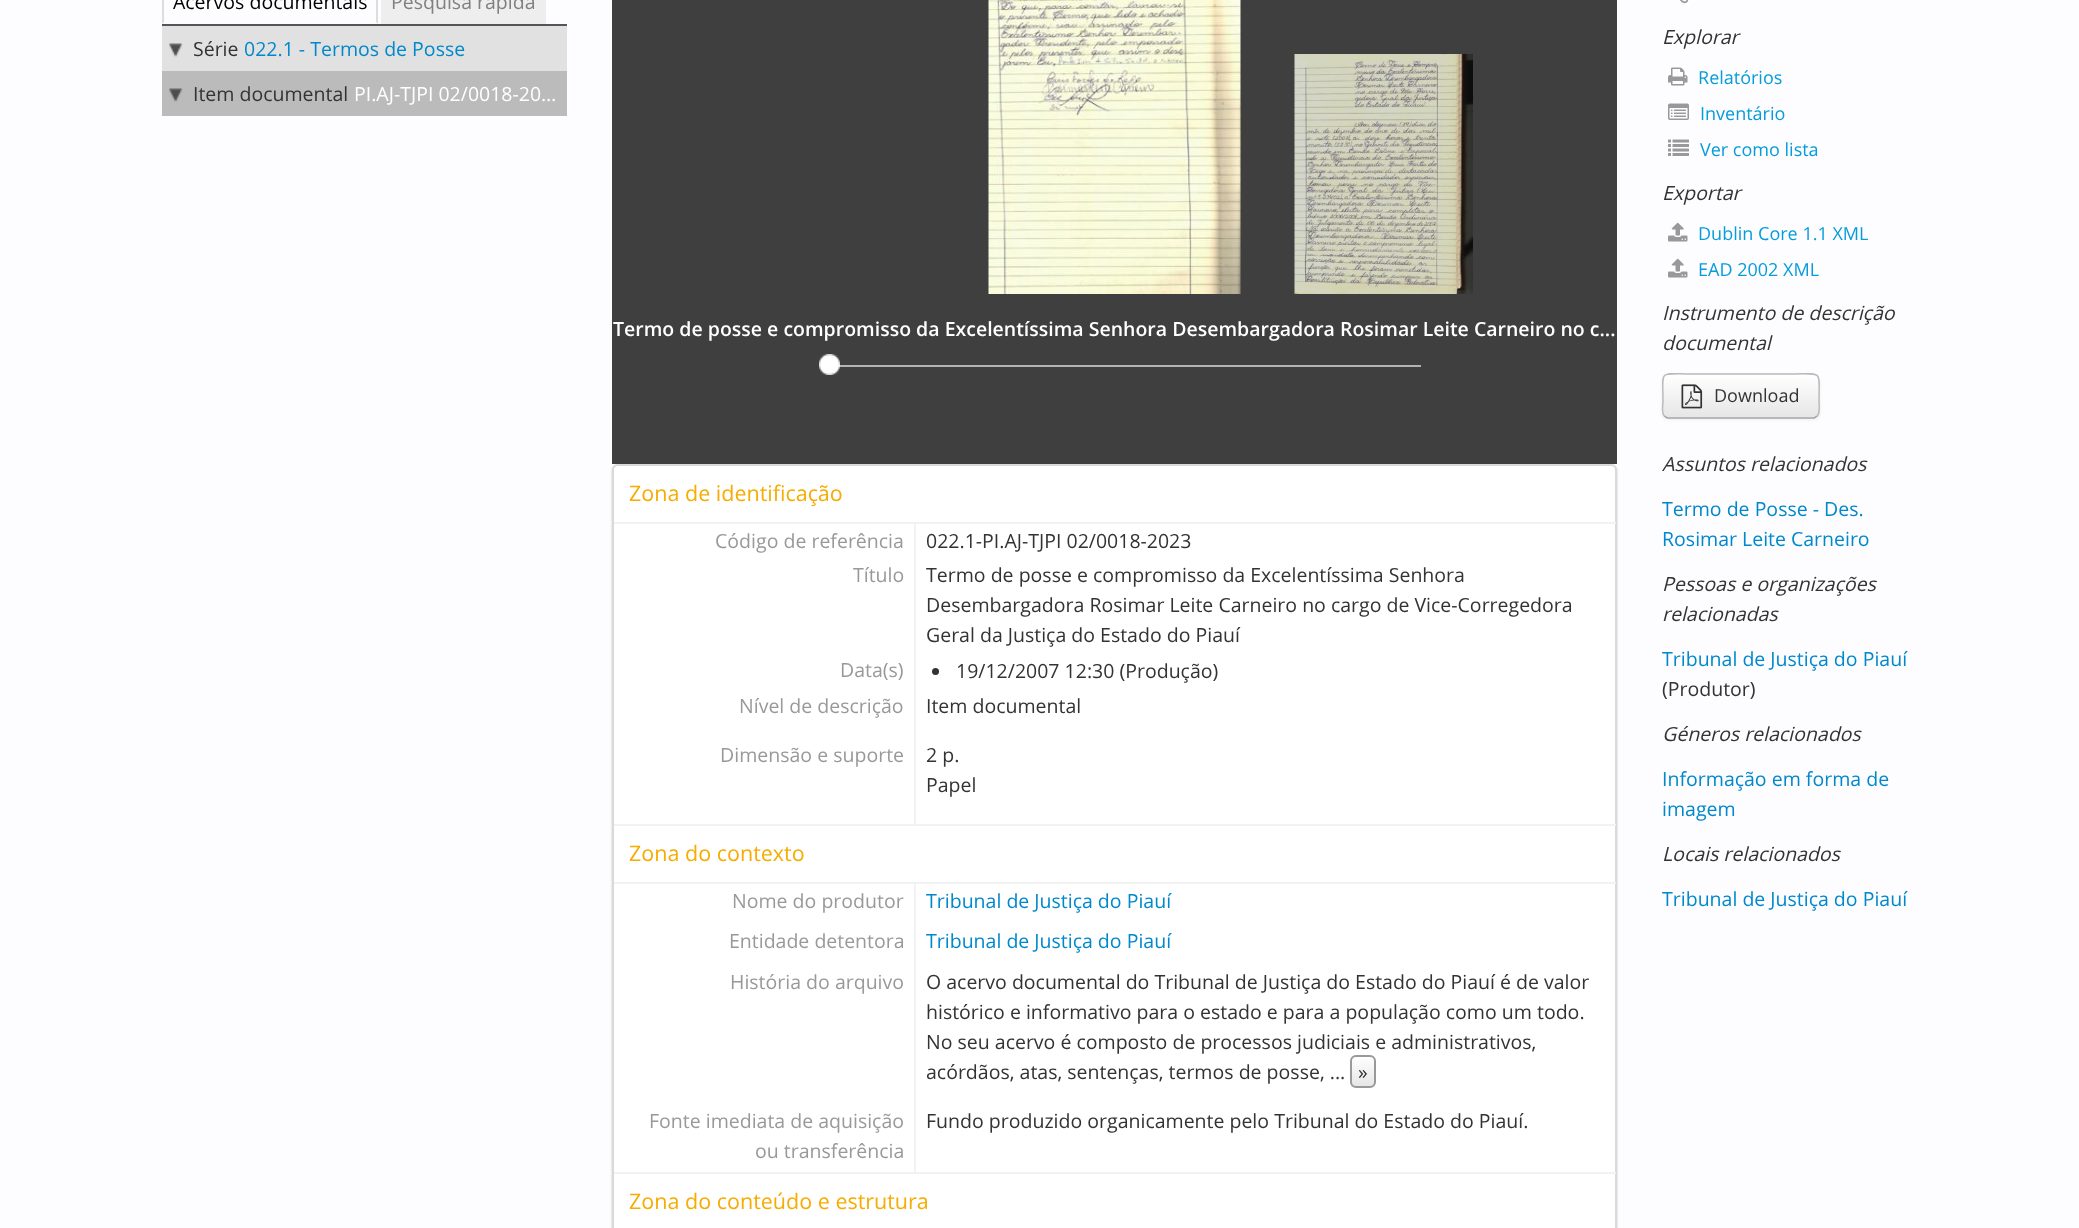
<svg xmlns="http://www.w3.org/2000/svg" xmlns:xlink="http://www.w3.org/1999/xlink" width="2079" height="1228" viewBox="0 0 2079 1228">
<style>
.cls-1{font:19.5px Open Sans;fill:#000000}
.cls-2{font:19.5px Open Sans;fill:#808080}
.cls-3{font:19.5px Open Sans;fill:#333333}
.cls-4{font:19.5px Open Sans;fill:#0088cc}
.cls-5{font:19.5px Open Sans;fill:#ffffff}
.cls-6{font:600 19.5px Open Sans;fill:#ffffff}
.cls-7{font:21.5px Open Sans;fill:#f6ac00}
.cls-8{font:19.5px Open Sans;fill:#999999}
.cls-9{font:italic 19.5px Open Sans;fill:#333333}
.cls-10{font:18px Open Sans;fill:#049cdb}
.cls-11{font:18px Open Sans;fill:#333333}
</style>
<defs>
<clipPath id="clip1"><rect x="1350" y="1055" width="26" height="33" rx="6"/></clipPath>
<linearGradient id="g1" gradientUnits="userSpaceOnUse" x1="1363" y1="1056" x2="1363" y2="1086"><stop offset="0" stop-color="#ffffff"/><stop offset="1" stop-color="#e6e6e6"/></linearGradient>
<clipPath id="clip2"><rect x="1662" y="374" width="158" height="45" rx="6"/></clipPath>
<linearGradient id="g2" gradientUnits="userSpaceOnUse" x1="1741" y1="375" x2="1741" y2="417"><stop offset="0" stop-color="#ffffff"/><stop offset="1" stop-color="#e6e6e6"/></linearGradient>
</defs>
<rect width="100%" height="100%" fill="#fdfdff"/>
<rect fill="#555555" x="162" y="24" width="405" height="2"/>
<path fill="#dddddd" d="M378 24V-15C378-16 377-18 376-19L375-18L376-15V22Z"/>
<path fill="#dddddd" d="M162 24L164 22V-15L165-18L164-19C163-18 162-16 162-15Z"/>
<rect fill="#eeeeee" x="381" y="0" width="165" height="24"/>
<rect fill="#e1e1e1" x="162" y="26" width="405" height="45"/>
<image xlink:href="image0.png" x="169" y="43" width="14" height="15"/>
<rect fill="#bbbbbb" x="162" y="71" width="405" height="45"/>
<image xlink:href="image1.png" x="169" y="88" width="14" height="14"/>
<rect fill="#3f3f40" x="612" y="0" width="1005" height="464"/>
<image xlink:href="image2.png" x="988" y="0" width="253" height="294"/>
<image xlink:href="image3.png" x="1294" y="54" width="179" height="240"/>
<rect fill="#b3b3b3" x="830" y="365" width="591" height="2"/>
<image xlink:href="image4.png" x="819" y="354" width="21" height="21"/>
<rect fill="#000000" fill-opacity="0.2" filter="blur(1px)" x="612" y="465" width="1005" height="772" rx="6"/>
<rect fill="#ffffff" stroke="#d9d9d9" stroke-width="2" x="613" y="465" width="1003" height="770" rx="5"/>
<rect fill="#f2f2f2" x="614" y="522" width="1002" height="2"/>
<rect fill="#f2f2f2" x="914" y="524" width="2" height="300"/>
<circle fill="#333333" cx="935.5" cy="671.5" r="3.5"/>
<rect fill="#f2f2f2" x="614" y="824" width="1002" height="2"/>
<rect fill="#f2f2f2" x="614" y="882" width="1002" height="2"/>
<rect fill="#f2f2f2" x="914" y="884" width="2" height="288"/>
<g clip-path="url(#clip1)">
<rect fill="url(#g1)" x="1350" y="1056" width="26" height="30"/>
</g>
<rect fill="none" stroke="#999999" stroke-width="2" x="1351" y="1056" width="24" height="31" rx="5"/>
<rect fill="#f2f2f2" x="614" y="1172" width="1002" height="2"/>
<image xlink:href="image5.png" x="1679" y="0" width="10" height="4"/>
<image xlink:href="image6.png" x="1668" y="67" width="20" height="19"/>
<image xlink:href="image7.png" x="1668" y="103" width="21" height="17"/>
<image xlink:href="image8.png" x="1668" y="139" width="21" height="17"/>
<image xlink:href="image9.png" x="1668" y="222" width="20" height="20"/>
<image xlink:href="image9.png" x="1668" y="258" width="20" height="20"/>
<rect fill="#000000" fill-opacity="0.05" filter="blur(1.5px)" x="1662" y="375" width="158" height="45" rx="6"/>
<rect fill="#f5f5f5" x="1662" y="374" width="158" height="45" rx="6"/>
<g clip-path="url(#clip2)">
<rect fill="url(#g2)" x="1662" y="375" width="158" height="42"/>
</g>
<path fill="none" stroke="#a2a2a2" stroke-width="1.5" d="M1817 416C1816 417 1815 418 1813.5 418H1668C1666.5 418 1665.5 417 1664.5 416"/>
<path fill="none" stroke="#bbbbbb" stroke-width="1.5" d="M1664.5 416C1661 413 1663 405 1663 401.5C1663 369 1657.5 374 1692 374H1789C1824 374 1819 369 1819 401.5C1819 405 1820.5 413 1817 416"/>
<image xlink:href="image10.png" x="1681" y="384" width="22" height="25"/>
<text class="cls-1" x="173" y="9">Acervos documentais</text>
<text class="cls-2" x="391" y="9">Pesquisa rápida</text>
<text class="cls-3" x="193" y="56">Série</text>
<text class="cls-4" x="244" y="56">022.1 - Termos de Posse</text>
<text class="cls-3" x="193" y="101">Item documental</text>
<text class="cls-5" x="354" y="101">PI.AJ-TJPI 02/0018-20…</text>
<text class="cls-6" x="613" y="336">Termo de posse e compromisso da Excelentíssima Senhora Desembargadora Rosimar Leite Carneiro no c...</text>
<text class="cls-7" x="629" y="501">Zona de identificação</text>
<text class="cls-8" x="715" y="548">Código de referência</text>
<text class="cls-3" x="926" y="548">022.1-PI.AJ-TJPI 02/0018-2023</text>
<text class="cls-8" x="853" y="582">Título</text>
<text class="cls-3"><tspan x="926" y="582">Termo de posse e compromisso da Excelentíssima Senhora</tspan><tspan x="926" y="612">Desembargadora Rosimar Leite Carneiro no cargo de Vice-Corregedora</tspan><tspan x="926" y="642">Geral da Justiça do Estado do Piauí</tspan></text>
<text class="cls-8" x="840" y="677">Data(s)</text>
<text class="cls-3" x="956" y="678">19/12/2007 12:30 (Produção)</text>
<text class="cls-8" x="739" y="713">Nível de descrição</text>
<text class="cls-3" x="926" y="713">Item documental</text>
<text class="cls-8" x="720" y="762">Dimensão e suporte</text>
<text class="cls-3"><tspan x="926" y="762">2 p.</tspan><tspan x="926" y="792">Papel</tspan></text>
<text class="cls-7" x="629" y="861">Zona do contexto</text>
<text class="cls-8" x="732" y="908">Nome do produtor</text>
<text class="cls-4" x="926" y="908">Tribunal de Justiça do Piauí</text>
<text class="cls-8" x="729" y="948">Entidade detentora</text>
<text class="cls-4" x="926" y="948">Tribunal de Justiça do Piauí</text>
<text class="cls-8" x="730" y="989">História do arquivo</text>
<text class="cls-3"><tspan x="926" y="989">O acervo documental do Tribunal de Justiça do Estado do Piauí é de valor</tspan><tspan x="926" y="1019">histórico e informativo para o estado e para a população como um todo.</tspan><tspan x="926" y="1049">No seu acervo é composto de processos judiciais e administrativos,</tspan><tspan x="926" y="1079">acórdãos, atas, sentenças, termos de posse, ...</tspan></text>
<text class="cls-3" x="1358" y="1079">»</text>
<text class="cls-8" x="649" y="1128">Fonte imediata de aquisição</text>
<text class="cls-8" x="755" y="1158">ou transferência</text>
<text class="cls-3" x="926" y="1128">Fundo produzido organicamente pelo Tribunal do Estado do Piauí.</text>
<text class="cls-7" x="629" y="1209">Zona do conteúdo e estrutura</text>
<text class="cls-9" x="1662" y="44">Explorar</text>
<text class="cls-10" x="1698" y="84">Relatórios</text>
<text class="cls-10" x="1700" y="120">Inventário</text>
<text class="cls-10" x="1700" y="156">Ver como lista</text>
<text class="cls-9" x="1662" y="200">Exportar</text>
<text class="cls-10" x="1698" y="240">Dublin Core 1.1 XML</text>
<text class="cls-10" x="1698" y="276">EAD 2002 XML</text>
<text class="cls-9"><tspan x="1662" y="320">Instrumento de descrição</tspan><tspan x="1662" y="350">documental</tspan></text>
<text class="cls-11" x="1714" y="402">Download</text>
<text class="cls-9" x="1662" y="471">Assuntos relacionados</text>
<text class="cls-4"><tspan x="1662" y="516">Termo de Posse - Des.</tspan><tspan x="1662" y="546">Rosimar Leite Carneiro</tspan></text>
<text class="cls-9"><tspan x="1662" y="591">Pessoas e organizações</tspan><tspan x="1662" y="621">relacionadas</tspan></text>
<text class="cls-4" x="1662" y="666">Tribunal de Justiça do Piauí</text>
<text class="cls-3" x="1662" y="696">(Produtor)</text>
<text class="cls-9" x="1662" y="741">Géneros relacionados</text>
<text class="cls-4"><tspan x="1662" y="786">Informação em forma de</tspan><tspan x="1662" y="816">imagem</tspan></text>
<text class="cls-9" x="1662" y="861">Locais relacionados</text>
<text class="cls-4" x="1662" y="906">Tribunal de Justiça do Piauí</text>
</svg>
